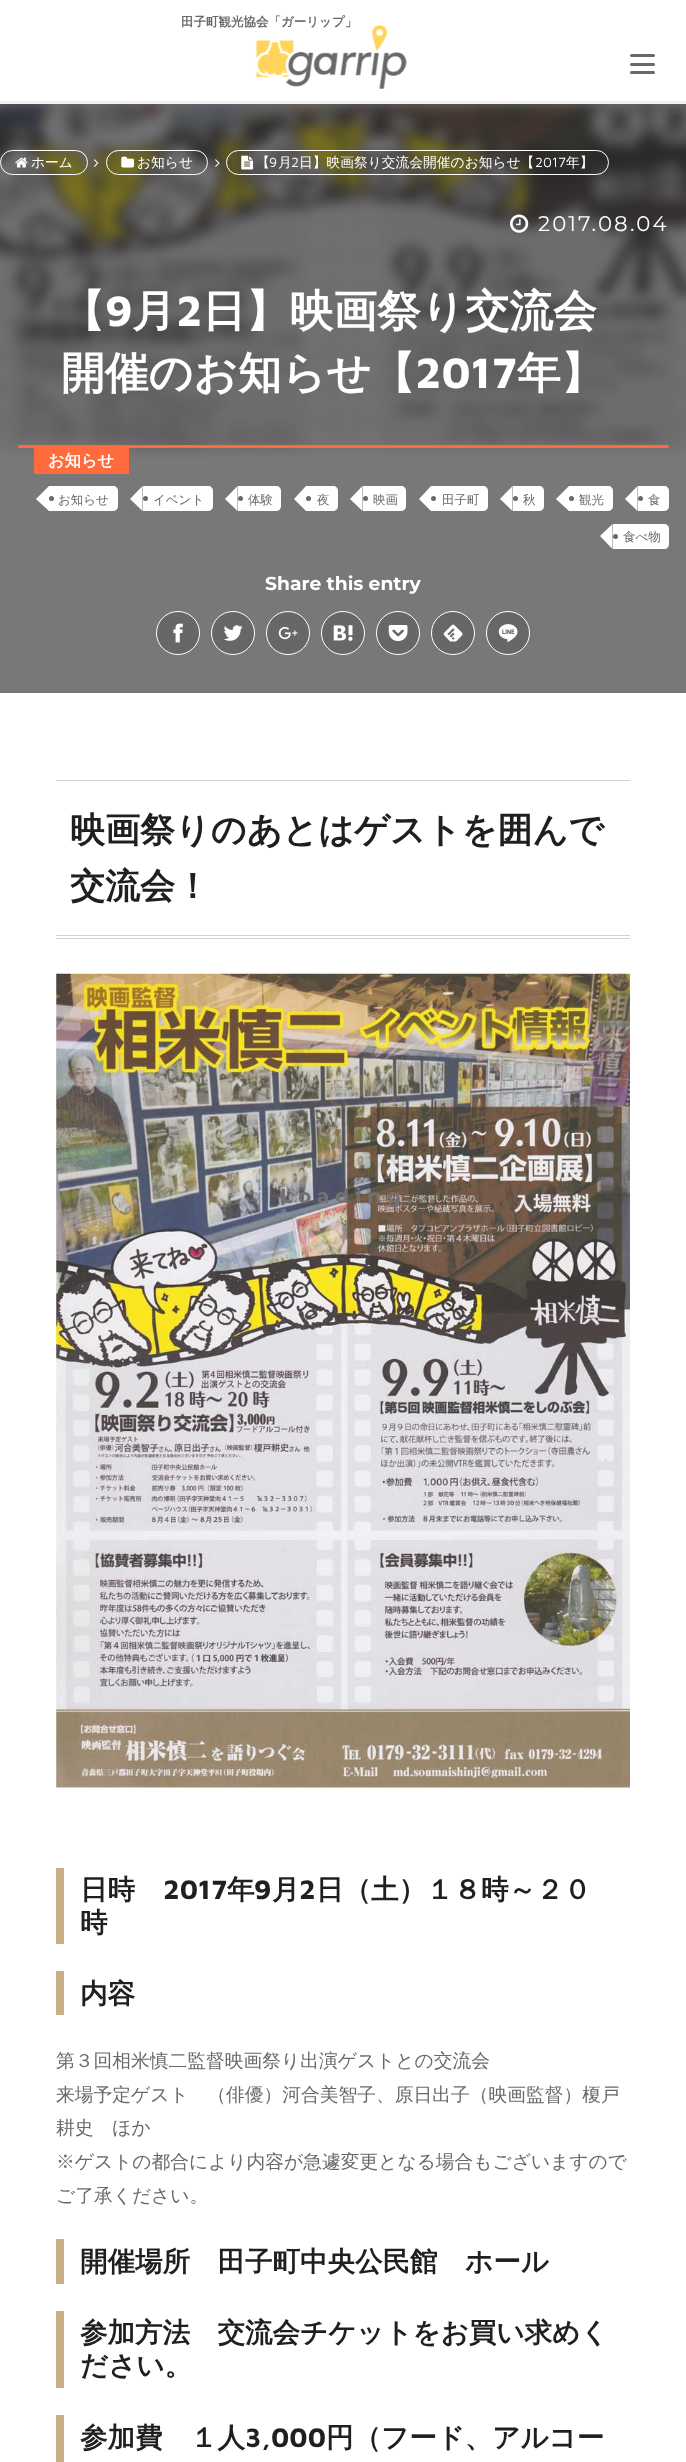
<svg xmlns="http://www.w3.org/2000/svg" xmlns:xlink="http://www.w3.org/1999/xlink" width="686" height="2462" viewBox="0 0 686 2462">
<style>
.cls-1{font:bold 12.5px WenQuanYi Zen Hei;fill:#696969}
.cls-2{font:500 13.75px WenQuanYi Zen Hei;fill:#ffffff}
.cls-3{font:13.75px Maven Pro;fill:#ffffff}
.cls-4{font:21.25px Montserrat;letter-spacing:2.1px;fill:#ffffff}
.cls-5{font:bold 43.75px WenQuanYi Zen Hei;fill:#ffffff}
.cls-6{font:bold 43.75px Maven Pro;fill:#ffffff}
.cls-7{font:bold 16.25px WenQuanYi Zen Hei;fill:#ffffff}
.cls-8{font:500 12.5px WenQuanYi Zen Hei;fill:#696969}
.cls-9{font:bold 18.75px Montserrat;fill:#ffffff}
.cls-10{font:bold 35px WenQuanYi Zen Hei;fill:#1f1f1f}
.cls-11{font:bold 27.5px WenQuanYi Zen Hei;fill:#1f1f1f}
.cls-12{font:bold 27.5px Maven Pro;fill:#1f1f1f}
.cls-13{font:500 18.75px WenQuanYi Zen Hei;fill:#696969}
.cls-14{font:bold 20px Montserrat;letter-spacing:6px;fill:#777070}
</style>
<rect width="100%" height="100%" fill="#ffffff"/>
<rect fill="#787878" x="0" y="104" width="686" height="589"/>
<image xlink:href="image1.png" x="0" y="104" width="686" height="355"/>
<rect fill="#1f1f1f" fill-opacity="0.12" filter="blur(12.5px)" x="0" y="0" width="686" height="104"/>
<rect fill="#ffffff" x="0" y="0" width="686" height="101"/>
<rect fill="#f0f0f0" x="0" y="101" width="686" height="3"/>
<image xlink:href="image0.png" x="255" y="25" width="152" height="64"/>
<rect fill="#696969" x="630" y="54" width="25" height="3" rx="1.5"/>
<rect fill="#696969" x="630" y="63" width="25" height="3" rx="1.5"/>
<rect fill="#696969" x="630" y="71" width="25" height="3" rx="1.5"/>
<rect fill="none" stroke="#ffffff" x="0.5" y="150.5" width="87" height="24" rx="12"/>
<image xlink:href="image2.png" x="15" y="157" width="13" height="11"/>
<image xlink:href="image3.png" x="93" y="159" width="6" height="8"/>
<rect fill="none" stroke="#ffffff" x="106.5" y="150.5" width="101" height="24" rx="12"/>
<image xlink:href="image4.png" x="121" y="156" width="13" height="12"/>
<image xlink:href="image5.png" x="215" y="159" width="5" height="8"/>
<rect fill="none" stroke="#ffffff" x="226.5" y="150.5" width="382" height="24" rx="12"/>
<image xlink:href="image6.png" x="241" y="155" width="13" height="15"/>
<image xlink:href="image7.png" x="510" y="214" width="19" height="19"/>
<rect fill="#ff6b3d" x="18" y="445" width="651" height="3" rx="1.5"/>
<rect fill="#ff6b3d" x="34" y="448" width="95" height="26"/>
<path fill="#ffffff" d="M49 486H113C116 486 118 488 118 491V506C118 509 116 511 113 511H49Z"/>
<path fill="#ffffff" d="M49 486V511L36 499Z"/>
<circle fill="#696969" cx="51.5" cy="498.5" r="2.5"/>
<path fill="#ffffff" d="M143 486H208C211 486 213 488 213 491V506C213 509 211 511 208 511H143Z"/>
<path fill="#ffffff" d="M142.5 486V511L130 499Z"/>
<circle fill="#696969" cx="145.5" cy="498.5" r="2.5"/>
<path fill="#ffffff" d="M238 486H276C279 486 281 488 281 491V506C281 509 279 511 276 511H238Z"/>
<path fill="#ffffff" d="M237.5 486V511L225 499Z"/>
<circle fill="#696969" cx="240.5" cy="498.5" r="2.5"/>
<path fill="#ffffff" d="M306 486H333C336 486 338 488 338 491V506C338 509 336 511 333 511H306Z"/>
<path fill="#ffffff" d="M306 486V511L294 499Z"/>
<circle fill="#696969" cx="308.5" cy="498.5" r="2.5"/>
<path fill="#ffffff" d="M363 486H401C404 486 406 488 406 491V506C406 509 404 511 401 511H363Z"/>
<path fill="#ffffff" d="M362.5 486V511L350 499Z"/>
<circle fill="#696969" cx="365.5" cy="498.5" r="2.5"/>
<path fill="#ffffff" d="M431 486H483C486 486 488 488 488 491V506C488 509 486 511 483 511H431Z"/>
<path fill="#ffffff" d="M431 486V511L419 499Z"/>
<circle fill="#696969" cx="433.5" cy="498.5" r="2.5"/>
<path fill="#ffffff" d="M513 486H539C542 486 544 488 544 491V506C544 509 542 511 539 511H513Z"/>
<path fill="#ffffff" d="M512.5 486V511L500 499Z"/>
<circle fill="#696969" cx="515.5" cy="498.5" r="2.5"/>
<path fill="#ffffff" d="M569 486H608C611 486 613 488 613 491V506C613 509 611 511 608 511H569Z"/>
<path fill="#ffffff" d="M569 486V511L556 499Z"/>
<circle fill="#696969" cx="571.5" cy="498.5" r="2.5"/>
<path fill="#ffffff" d="M638 486H664C667 486 669 488 669 491V506C669 509 667 511 664 511H638Z"/>
<path fill="#ffffff" d="M637.5 486V511L625 499Z"/>
<circle fill="#696969" cx="640.5" cy="498.5" r="2.5"/>
<path fill="#ffffff" d="M613 524H664C667 524 669 526 669 529V544C669 547 667 549 664 549H613Z"/>
<path fill="#ffffff" d="M612.5 524V549L600 536Z"/>
<circle fill="#696969" cx="615.5" cy="536.5" r="2.5"/>
<circle fill="#676767" stroke="#ffffff" cx="178" cy="633" r="21.5"/>
<image xlink:href="image8.png" x="173" y="623" width="10" height="20"/>
<circle fill="#676767" stroke="#ffffff" cx="233" cy="633" r="21.5"/>
<image xlink:href="image9.png" x="224" y="625" width="19" height="16"/>
<circle fill="#676767" stroke="#ffffff" cx="288" cy="633" r="21.5"/>
<image xlink:href="image10.png" x="278" y="626" width="20" height="14"/>
<circle fill="#676767" stroke="#ffffff" cx="343" cy="633" r="21.5"/>
<image xlink:href="image11.png" x="333" y="625" width="20" height="16"/>
<circle fill="#676767" stroke="#ffffff" cx="398" cy="633" r="21.5"/>
<image xlink:href="image12.png" x="388" y="625" width="20" height="17"/>
<circle fill="#676767" stroke="#ffffff" cx="453" cy="633" r="21.5"/>
<image xlink:href="image13.png" x="443" y="624" width="20" height="18"/>
<circle fill="#676767" stroke="#ffffff" cx="508" cy="633" r="21.5"/>
<image xlink:href="image14.png" x="498" y="624" width="20" height="18"/>
<rect fill="#d2d2d2" x="56" y="780" width="574" height="1"/>
<rect fill="#d2d2d2" x="56" y="935" width="574" height="1"/>
<rect fill="#d2d2d2" x="56" y="938" width="574" height="1"/>
<image xlink:href="image15.png" x="56" y="973" width="574" height="815"/>
<rect fill="#c9af86" x="56" y="1868" width="8" height="76"/>
<rect fill="#c9af86" x="56" y="1971" width="8" height="44"/>
<rect fill="#c9af86" x="56" y="2239" width="8" height="45"/>
<rect fill="#c9af86" x="56" y="2311" width="8" height="77"/>
<rect fill="#c9af86" x="56" y="2415" width="8" height="47"/>
<image xlink:href="image16.png" x="275" y="1040" width="136" height="128"/>
<image xlink:href="image17.png" x="348" y="1073" width="27" height="25"/>
<text class="cls-1" x="181" y="26">田子町観光協会「ガーリップ」</text>
<text class="cls-2" x="31" y="167">ホーム</text>
<text class="cls-2" x="137" y="167">お知らせ</text>
<text class="cls-2" x="256" y="167">【</text>
<text class="cls-3" x="269" y="167">9</text>
<text class="cls-2" x="278" y="167">月</text>
<text class="cls-3" x="291" y="167">2</text>
<text class="cls-2" x="299" y="167">日】映画祭り交流会開催のお知らせ【</text>
<text class="cls-3" x="535" y="167">2017</text>
<text class="cls-2" x="566" y="167">年】</text>
<text class="cls-4" x="538" y="231">2017.08.04</text>
<text class="cls-5" x="61" y="326">【</text>
<text class="cls-6" x="105" y="326">9</text>
<text class="cls-5" x="132" y="326">月</text>
<text class="cls-6" x="176" y="326">2</text>
<text class="cls-5" x="202" y="326">日】映画祭り交流会</text>
<text class="cls-5" x="61" y="388">開催のお知らせ【</text>
<text class="cls-6" x="415" y="388">2017</text>
<text class="cls-5" x="517" y="388">年】</text>
<text class="cls-7" x="48" y="466">お知らせ</text>
<text class="cls-8" x="58" y="504">お知らせ</text>
<text class="cls-8" x="153" y="504">イベント</text>
<text class="cls-8" x="248" y="504">体験</text>
<text class="cls-8" x="317" y="504">夜</text>
<text class="cls-8" x="373" y="504">映画</text>
<text class="cls-8" x="442" y="504">田子町</text>
<text class="cls-8" x="523" y="504">秋</text>
<text class="cls-8" x="579" y="504">観光</text>
<text class="cls-8" x="648" y="504">食</text>
<text class="cls-8" x="623" y="541">食べ物</text>
<text class="cls-9" x="265" y="590">Share this entry</text>
<text class="cls-10"><tspan x="70" y="842">映画祭りのあとはゲストを囲んで</tspan><tspan x="70" y="898">交流会！</tspan></text>
<text class="cls-11" x="80" y="1899">日時</text>
<text class="cls-12" x="163" y="1899">2017</text>
<text class="cls-11" x="227" y="1899">年</text>
<text class="cls-12" x="254" y="1899">9</text>
<text class="cls-11" x="272" y="1899">月</text>
<text class="cls-12" x="299" y="1899">2</text>
<text class="cls-11" x="316" y="1899">日（土）１８時～２０</text>
<text class="cls-11" x="80" y="1932">時</text>
<text class="cls-11" x="80" y="2003">内容</text>
<text class="cls-13"><tspan x="56" y="2067">第３回相米慎二監督映画祭り出演ゲストとの交流会</tspan><tspan x="56" y="2101">来場予定ゲスト　（俳優）河合美智子、原日出子（映画監督）榎戸</tspan><tspan x="56" y="2134">耕史　ほか</tspan><tspan x="56" y="2168">※ゲストの都合により内容が急遽変更となる場合もございますので</tspan><tspan x="56" y="2202">ご了承ください。</tspan></text>
<text class="cls-11" x="80" y="2271">開催場所　田子町中央公民館　ホール</text>
<text class="cls-11"><tspan x="80" y="2342">参加方法　交流会チケットをお買い求めく</tspan><tspan x="80" y="2375">ださい。</tspan></text>
<text class="cls-11" x="80" y="2447">参加費　１人</text>
<text class="cls-12" x="245" y="2447">3,000</text>
<text class="cls-11" x="326" y="2447">円（フード、アルコー</text>
<text class="cls-14" x="280" y="1203">Loading...</text>
</svg>
